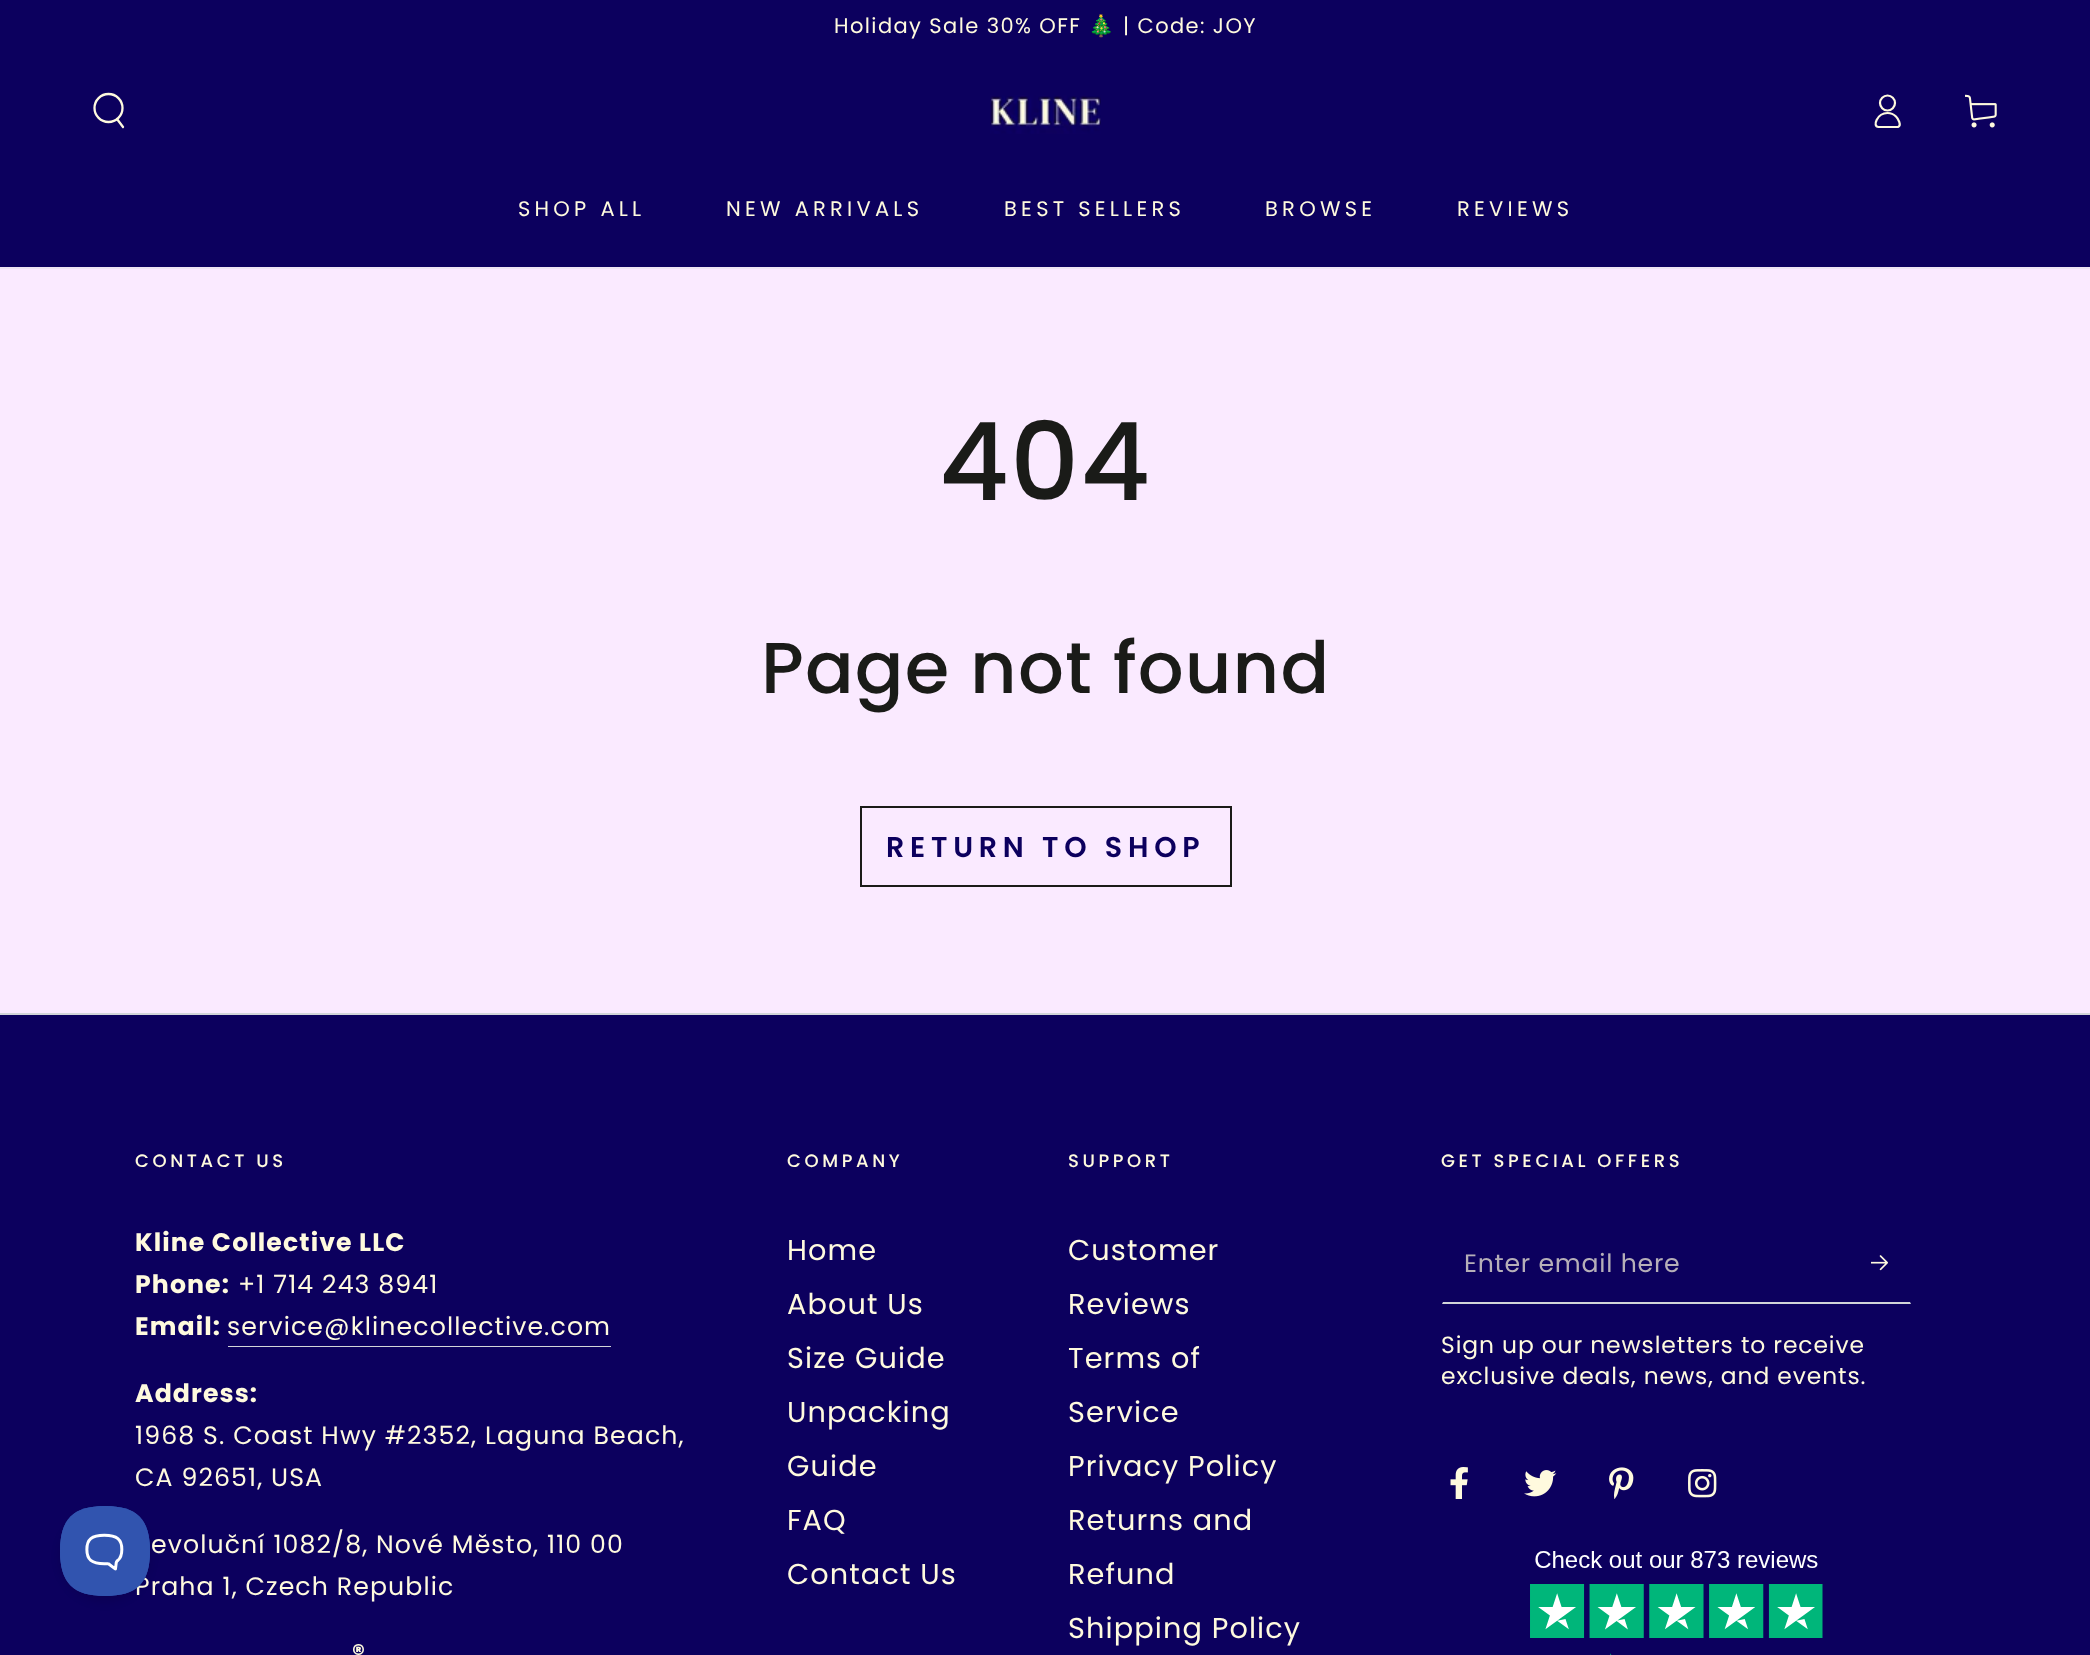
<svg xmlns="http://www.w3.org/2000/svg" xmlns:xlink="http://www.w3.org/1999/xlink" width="2090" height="1655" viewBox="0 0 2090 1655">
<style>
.cls-1{font:21px Poppins;letter-spacing:1.4px;fill:#fffade}
.cls-2{font:21px Noto Color Emoji;letter-spacing:1.4px;fill:#fffade}
.cls-3{font:21px Poppins;letter-spacing:4.25px;fill:#fffade}
.cls-4{font:500 108px Poppins;letter-spacing:1.1px;fill:#1a1b18}
.cls-5{font:500 72px Poppins;letter-spacing:1.1px;fill:#1a1b18}
.cls-6{font:600 28.5px Poppins;letter-spacing:5.75px;fill:#0c005e}
.cls-7{font:500 18px Poppins;letter-spacing:3.6px;fill:#fffade}
.cls-8{font:bold 25.2px Poppins;letter-spacing:1.1px;fill:#fffade}
.cls-9{font:25.2px Poppins;letter-spacing:1.1px;fill:#fffade}
.cls-10{font:28.75px Poppins;letter-spacing:1.1px;fill:#fffade}
.cls-11{font:25.2px Poppins;letter-spacing:0.75px;fill:#b6afb8}
.cls-12{font:23.4px Poppins;letter-spacing:0.9px;fill:#fffade}
</style>
<rect width="100%" height="100%" fill="#faeaff"/>
<rect fill="#0c005e" x="0" y="1015" width="2090" height="640"/>
<rect fill="#000000" fill-opacity="0.1" filter="blur(5px)" x="60" y="1512" width="90" height="90" rx="45"/>
<rect fill="#eee4f4" x="0" y="267" width="2090" height="2"/>
<rect fill="#0c005e" x="0" y="0" width="2090" height="267"/>
<circle fill="none" stroke="#fffade" stroke-width="2.3" cx="108.5" cy="108" r="14"/>
<path fill="none" stroke="#fffade" stroke-width="2.3" stroke-linecap="round" d="M117 119L123 127"/>
<image xlink:href="image1.png" x="990" y="95" width="111" height="39"/>
<path fill="none" stroke="#fffade" stroke-width="2.2" d="M1887.5 113C1877 113 1872 127 1878.5 127H1898C1902 125.5 1898 118.5 1896 116.5C1894 114.5 1891 113 1887.5 113Z"/>
<circle fill="none" stroke="#fffade" stroke-width="2.2" cx="1887.5" cy="103" r="7.5"/>
<image xlink:href="image2.png" x="1965" y="94" width="32" height="34"/>
<rect fill="none" stroke="#1a1b18" stroke-width="2" x="861" y="807" width="370" height="79"/>
<rect fill="#d2d5d9" x="0" y="1013" width="2090" height="2"/>
<rect fill="#d2d5d9" x="228" y="1346" width="383" height="1"/>
<path fill="#d2d5d9" d="M1911 1304H1442L1443 1302H1910Z"/>
<image xlink:href="image3.png" x="1871" y="1255" width="17" height="16"/>
<image xlink:href="image4.png" x="1450" y="1467" width="18" height="32"/>
<image xlink:href="image5.png" x="1524" y="1470" width="33" height="27"/>
<image xlink:href="image6.png" x="1609" y="1467" width="25" height="32"/>
<image xlink:href="image7.png" x="1688" y="1469" width="29" height="29"/>
<image xlink:href="image8.png" x="1530" y="1551" width="293" height="104"/>
<text class="cls-1" x="834" y="33">Holiday Sale 30% OFF</text>
<text class="cls-2" x="1088" y="33">🎄</text>
<text class="cls-1" x="1123" y="33">| Code: JOY</text>
<text class="cls-3" x="518" y="216">SHOP ALL</text>
<text class="cls-3" x="726" y="216">NEW ARRIVALS</text>
<text class="cls-3" x="1004" y="216">BEST SELLERS</text>
<text class="cls-3" x="1265" y="216">BROWSE</text>
<text class="cls-3" x="1457" y="216">REVIEWS</text>
<text class="cls-4" x="939" y="500">404</text>
<text class="cls-5" x="761" y="693">Page not found</text>
<text class="cls-6" x="886" y="857">RETURN TO SHOP</text>
<text class="cls-7" x="135" y="1167">CONTACT US</text>
<text class="cls-8"><tspan x="135" y="1251">Kline Collective LLC</tspan><tspan x="135" y="1293">Phone:</tspan></text>
<text class="cls-9" x="238" y="1293">+1 714 243 8941</text>
<text class="cls-8" x="135" y="1335">Email:</text>
<text class="cls-9" x="227" y="1335">service@klinecollective.com</text>
<text class="cls-8" x="135" y="1402">Address:</text>
<text class="cls-9"><tspan x="135" y="1444">1968 S. Coast Hwy #2352, Laguna Beach,</tspan><tspan x="135" y="1486">CA 92651, USA</tspan></text>
<text class="cls-9" x="151" y="1553">evoluční 1082/8, Nové Město, 110 00</text>
<text class="cls-9" x="135" y="1595">Praha 1, Czech Republic</text>
<image xlink:href="image0.png" x="60" y="1506" width="90" height="90"/>
<text class="cls-8" x="352" y="1662">®</text>
<text class="cls-7" x="787" y="1167">COMPANY</text>
<text class="cls-10"><tspan x="787" y="1260">Home</tspan><tspan x="787" y="1314">About Us</tspan><tspan x="787" y="1368">Size Guide</tspan><tspan x="787" y="1422">Unpacking</tspan><tspan x="787" y="1476">Guide</tspan><tspan x="787" y="1530">FAQ</tspan><tspan x="787" y="1584">Contact Us</tspan></text>
<text class="cls-7" x="1068" y="1167">SUPPORT</text>
<text class="cls-10"><tspan x="1068" y="1260">Customer</tspan><tspan x="1068" y="1314">Reviews</tspan><tspan x="1068" y="1368">Terms of</tspan><tspan x="1068" y="1422">Service</tspan><tspan x="1068" y="1476">Privacy Policy</tspan><tspan x="1068" y="1530">Returns and</tspan><tspan x="1068" y="1584">Refund</tspan><tspan x="1068" y="1638">Shipping Policy</tspan></text>
<text class="cls-7" x="1441" y="1167">GET SPECIAL OFFERS</text>
<text class="cls-11" x="1464" y="1272">Enter email here</text>
<text class="cls-12"><tspan x="1441" y="1353">Sign up our newsletters to receive</tspan><tspan x="1441" y="1384">exclusive deals, news, and events.</tspan></text>
</svg>
